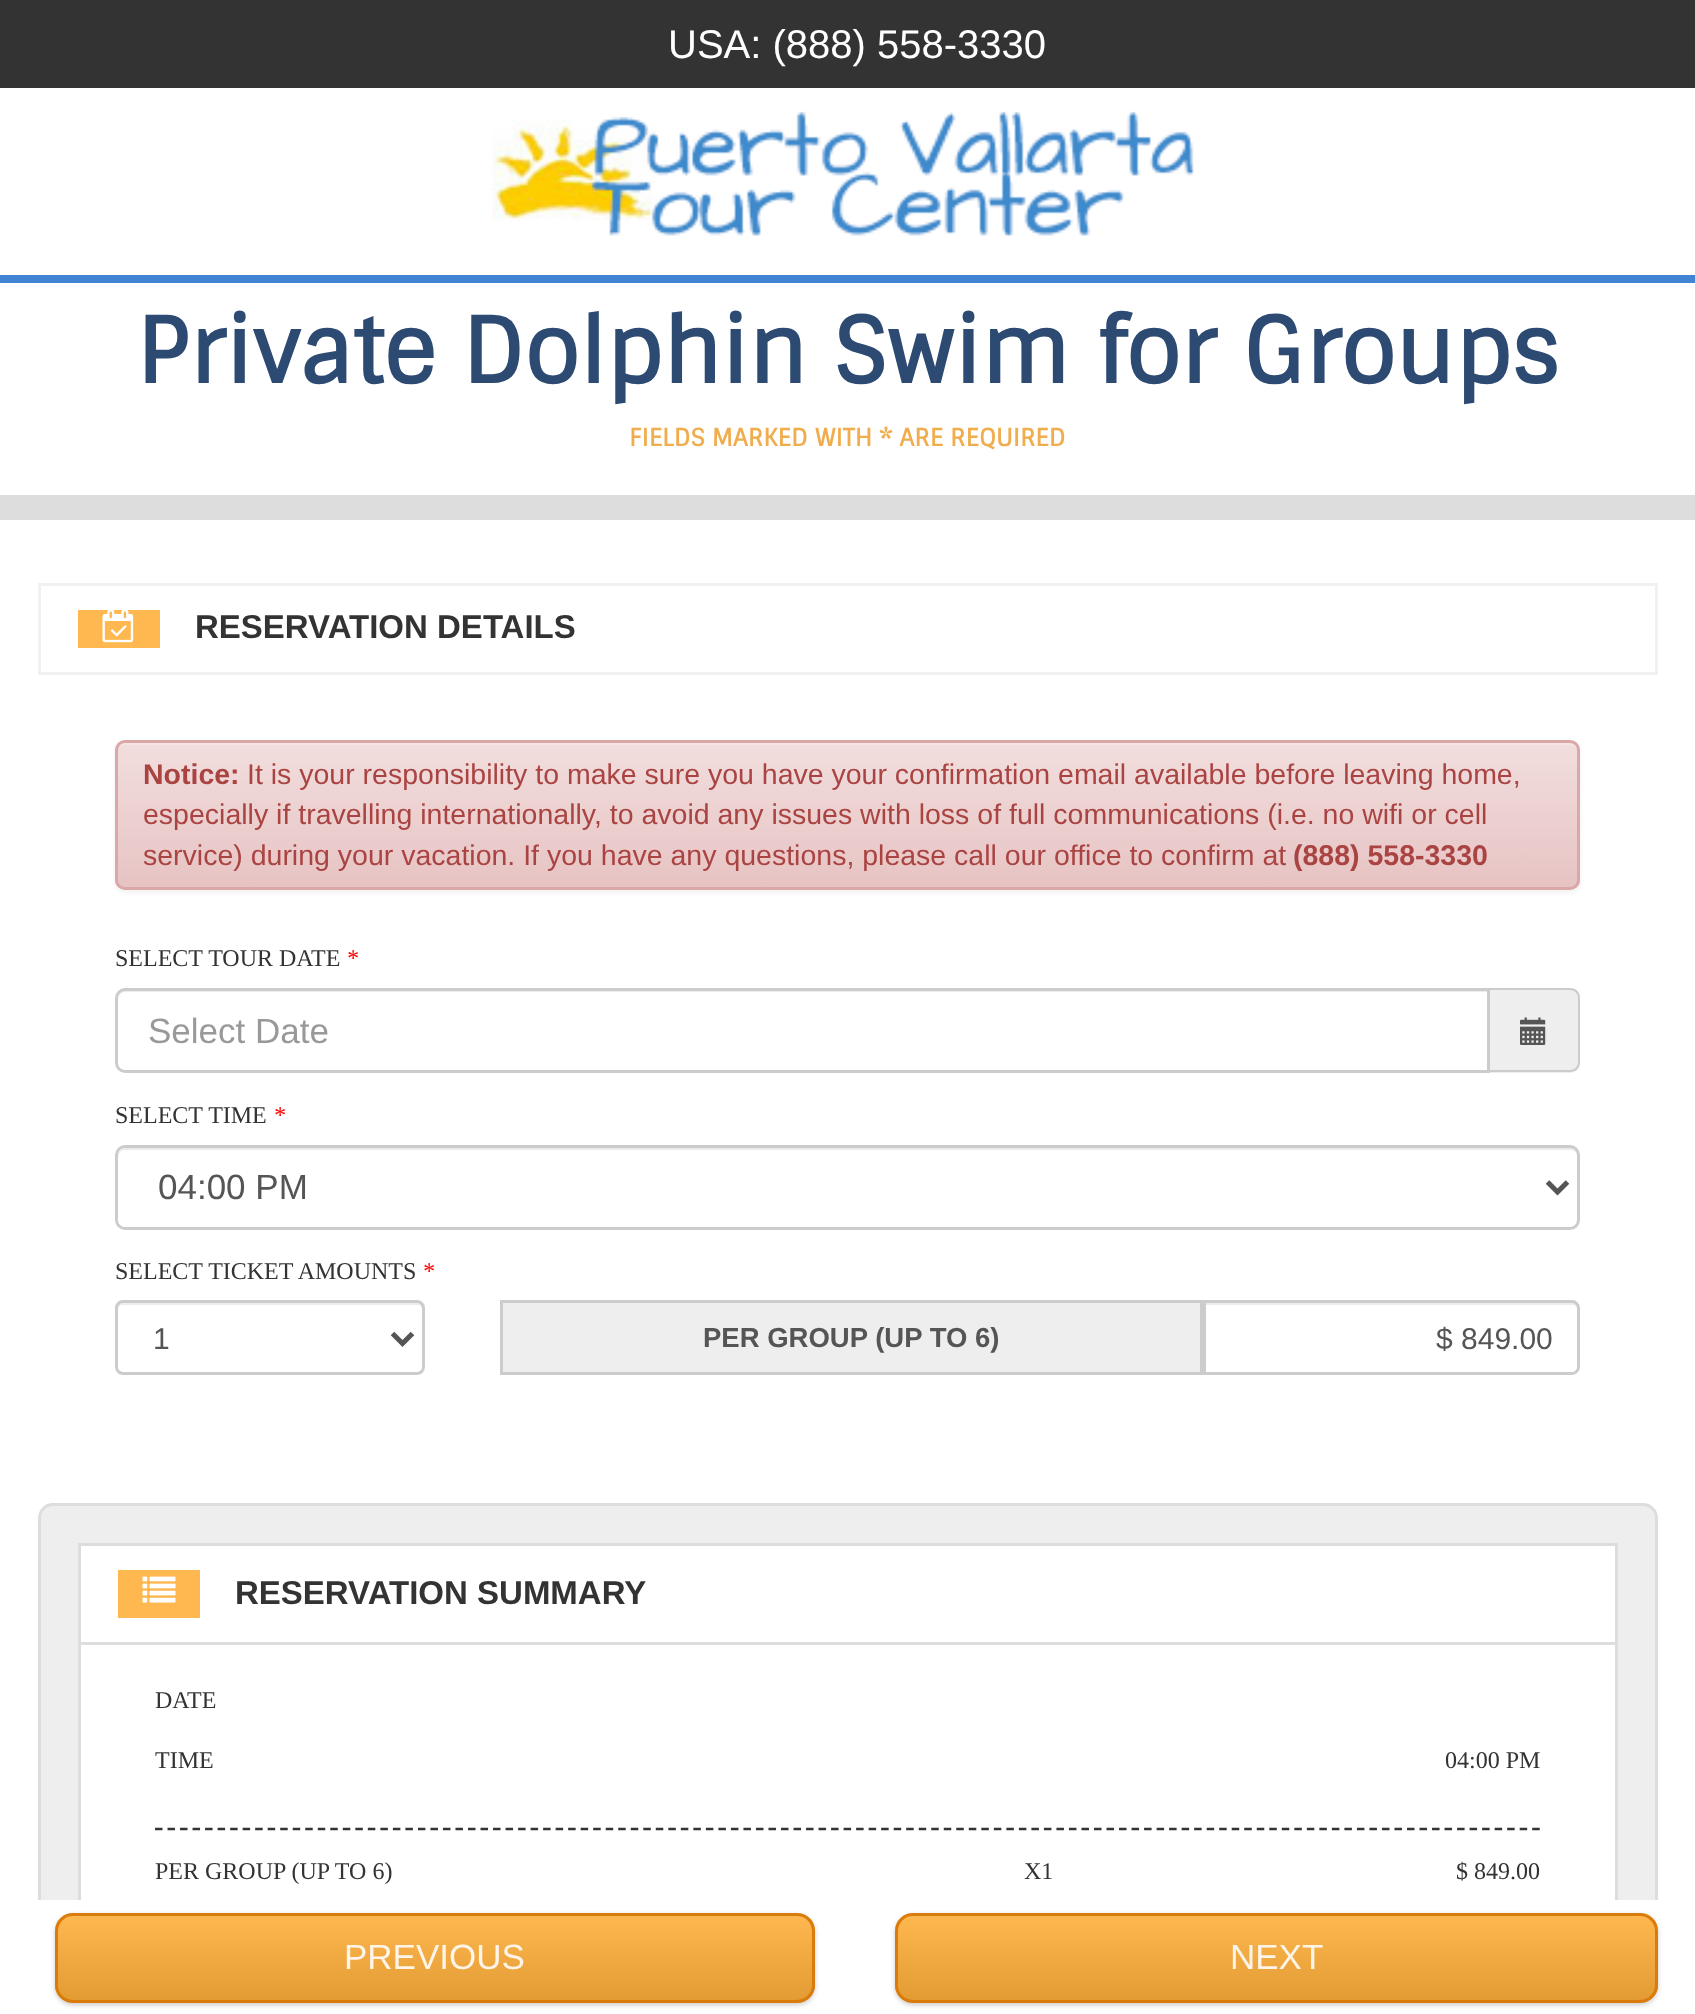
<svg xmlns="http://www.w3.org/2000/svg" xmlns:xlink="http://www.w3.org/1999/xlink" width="1695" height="2014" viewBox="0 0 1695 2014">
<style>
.cls-1{font:40px Liberation Sans;fill:#ffffff}
.cls-2{font:bold 90px Sintony;fill:#2d4a72}
.cls-3{font:bold 24px Sintony;fill:#f0ad4e}
.cls-4{font:bold 33px Liberation Sans;fill:#333333}
.cls-5{font:bold 28.5px Liberation Sans;fill:#a94442}
.cls-6{font:28.5px Liberation Sans;fill:#a94442}
.cls-7{font:24px Liberation Serif;fill:#333333}
.cls-8{font:italic 24px Liberation Serif;fill:#ff0000}
.cls-9{font:35px Liberation Sans;fill:#999999}
.cls-10{font:35px Liberation Sans;fill:#555555}
.cls-11{font:30px Liberation Sans;fill:#555555}
.cls-12{font:bold 27.5px Liberation Sans;fill:#555555}
.cls-13{font:35px Liberation Sans;fill:#fef4e9}
</style>
<defs>
<clipPath id="clip1"><rect x="115" y="740" width="1465" height="150" rx="10"/></clipPath>
<linearGradient id="g1" gradientUnits="userSpaceOnUse" x1="848" y1="742" x2="848" y2="888"><stop offset="0" stop-color="#f2dede"/><stop offset="1" stop-color="#e7c3c3"/></linearGradient>
<clipPath id="clip2"><rect x="55" y="1913" width="760" height="90" rx="18"/></clipPath>
<linearGradient id="g2" gradientUnits="userSpaceOnUse" x1="58" y1="1915" x2="58" y2="2000"><stop offset="0" stop-color="#ffb84f"/><stop offset="1" stop-color="#e39c34"/></linearGradient>
<clipPath id="clip3"><rect x="895" y="1913" width="763" height="90" rx="18"/></clipPath>
<linearGradient id="g3" gradientUnits="userSpaceOnUse" x1="898" y1="1915" x2="898" y2="2000"><stop offset="0" stop-color="#ffb84f"/><stop offset="1" stop-color="#e39c34"/></linearGradient>
</defs>
<rect width="100%" height="100%" fill="#ffffff"/>
<rect fill="#333333" x="0" y="0" width="1695" height="88"/>
<rect fill="#dddddd" x="0" y="495" width="1695" height="25"/>
<rect fill="#4284d3" x="0" y="275" width="1695" height="8"/>
<image xlink:href="image0.png" x="492" y="111" width="702" height="125"/>
<rect fill="none" stroke="#f1f1f1" stroke-width="3" x="39.5" y="584.5" width="1617" height="89"/>
<rect fill="#ffb84f" x="78" y="610" width="82" height="38"/>
<image xlink:href="image1.png" x="102" y="610" width="32" height="33"/>
<rect fill="#000000" fill-opacity="0.05" filter="blur(2.5px)" x="115" y="743" width="1465" height="150" rx="10"/>
<g clip-path="url(#clip1)">
<rect fill="url(#g1)" x="115" y="743" width="1465" height="145"/>
</g>
<path fill="#f5e6e6" d="M125 745H1570C1574 745 1578 748 1578 752C1578 747 1575 743 1570 743H126C121 743 118 747 118 752C118 748 121 745 125 745Z"/>
<rect fill="none" stroke="#dca7a7" stroke-width="3" x="116.5" y="741.5" width="1462" height="147" rx="8.5"/>
<path fill="#ececec" d="M125 992H1488V990H126C122 990 118 994 118 998V1000C118 996 121 992 125 992Z"/>
<path fill="none" stroke="#cccccc" stroke-width="3" d="M125 989.5H1488.5V1071.5H125C120.5 1071.5 116.5 1067.5 116.5 1063V998C116.5 993.5 120.5 989.5 125 989.5Z"/>
<path fill="#eeeeee" d="M1490 988H1570C1575.5 988 1580 992.5 1580 998V1063C1580 1068.5 1575.5 1073 1570 1073H1490Z"/>
<path fill="#cccccc" fill-rule="evenodd" d="M1490 988H1570C1576 988 1580 992 1580 998V1062C1580 1068 1576 1072 1570 1072H1490ZM1490 990H1570C1574 990 1578 993 1578 998V1062C1578 1067 1574 1070 1570 1070H1490Z"/>
<image xlink:href="image2.png" x="1520" y="1017" width="26" height="28"/>
<path fill="#ececec" d="M125 1150H1570C1574 1150 1578 1153 1578 1158V1156C1578 1152 1574 1148 1570 1148H126C122 1148 118 1152 118 1156V1158C118 1153 121 1150 125 1150Z"/>
<rect fill="none" stroke="#cccccc" stroke-width="3" x="116.5" y="1146.5" width="1462" height="82" rx="8.5"/>
<path fill="none" stroke="#555555" stroke-width="5" d="M1547.5 1182L1557.5 1192L1567.5 1182"/>
<path fill="#ececec" d="M122 1305H418C420 1305 422 1307 422 1310V1371C423 1370 423 1369 423 1368V1308C423 1305 421 1303 418 1303H123C120 1303 118 1305 118 1308V1310C118 1307 120 1305 122 1305Z"/>
<rect fill="none" stroke="#cccccc" stroke-width="3" x="116.5" y="1301.5" width="307" height="72" rx="6.5"/>
<path fill="none" stroke="#555555" stroke-width="5" d="M392.5 1333.5L402.5 1343.5L412.5 1333.5"/>
<rect fill="#eeeeee" stroke="#cccccc" stroke-width="3" x="501.5" y="1301.5" width="700" height="72"/>
<path fill="#ececec" d="M1205 1305H1572C1575 1305 1578 1307 1578 1310V1308C1578 1305 1576 1303 1573 1303H1205Z"/>
<path fill="none" stroke="#cccccc" stroke-width="3" d="M1204.5 1301.5H1572C1575.5 1301.5 1578.5 1304.5 1578.5 1308V1367C1578.5 1370.5 1575.5 1373.5 1572 1373.5H1204.5Z"/>
<rect fill="#eeeeee" stroke="#dddddd" stroke-width="3" x="39.5" y="1504.5" width="1617" height="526" rx="13.5"/>
<rect fill="#ffffff" x="38" y="1900" width="1620" height="114"/>
<rect fill="#000000" fill-opacity="0.2" filter="blur(2.5px)" x="55" y="1915" width="760" height="90" rx="18"/>
<g clip-path="url(#clip2)">
<rect fill="url(#g2)" x="55" y="1915" width="760" height="85"/>
</g>
<rect fill="none" stroke="#da7c0c" stroke-width="3" x="56.5" y="1914.5" width="757" height="87" rx="16.5"/>
<rect fill="#000000" fill-opacity="0.2" filter="blur(2.5px)" x="895" y="1915" width="763" height="90" rx="18"/>
<g clip-path="url(#clip3)">
<rect fill="url(#g3)" x="895" y="1915" width="763" height="85"/>
</g>
<rect fill="none" stroke="#da7c0c" stroke-width="3" x="896.5" y="1914.5" width="760" height="87" rx="16.5"/>
<rect fill="#ffffff" stroke="#dddddd" stroke-width="3" x="79.5" y="1544.5" width="1537" height="99"/>
<rect fill="#ffb84f" x="118" y="1570" width="82" height="48"/>
<image xlink:href="image3.png" x="142" y="1576" width="34" height="27"/>
<rect fill="#ffffff" x="81" y="1645" width="1534" height="255"/>
<rect fill="#dddddd" x="1615" y="1645" width="3" height="255"/>
<rect fill="#dddddd" x="78" y="1645" width="3" height="255"/>
<path fill="none" stroke="#333333" stroke-width="2.5" stroke-dasharray="7.5 5.02" d="M155 1829H1540"/>
<text class="cls-1" x="668" y="58">USA: (888) 558-3330</text>
<text class="cls-2" x="136" y="383">Private Dolphin Swim for Groups</text>
<text class="cls-3" x="629" y="446">FIELDS MARKED WITH * ARE REQUIRED</text>
<text class="cls-4" x="195" y="638">RESERVATION DETAILS</text>
<text class="cls-5" x="143" y="784">Notice:</text>
<text class="cls-6" x="247" y="784">It is your responsibility to make sure you have your confirmation email available before leaving home,</text>
<text class="cls-6"><tspan x="143" y="824">especially if travelling internationally, to avoid any issues with loss of full communications (i.e. no wifi or cell</tspan><tspan x="143" y="865">service) during your vacation. If you have any questions, please call our office to confirm at</tspan></text>
<text class="cls-5" x="1293" y="865">(888) 558-3330</text>
<text class="cls-7" x="115" y="966">SELECT TOUR DATE</text>
<text class="cls-8" x="346" y="966">*</text>
<text class="cls-9" x="148" y="1043">Select Date</text>
<text class="cls-7" x="115" y="1123">SELECT TIME</text>
<text class="cls-8" x="273" y="1123">*</text>
<text class="cls-10" x="158" y="1199">04:00 PM</text>
<text class="cls-7" x="115" y="1279">SELECT TICKET AMOUNTS</text>
<text class="cls-8" x="422" y="1279">*</text>
<text class="cls-11" x="153" y="1349">1</text>
<text class="cls-12" x="703" y="1347">PER GROUP (UP TO 6)</text>
<text class="cls-11" x="1436" y="1349">$ 849.00</text>
<text class="cls-13" x="344" y="1969">PREVIOUS</text>
<text class="cls-13" x="1230" y="1969">NEXT</text>
<text class="cls-4" x="235" y="1604">RESERVATION SUMMARY</text>
<text class="cls-7" x="155" y="1708">DATE</text>
<text class="cls-7" x="155" y="1768">TIME</text>
<text class="cls-7" x="1445" y="1768">04:00 PM</text>
<text class="cls-7" x="155" y="1879">PER GROUP (UP TO 6)</text>
<text class="cls-7" x="1024" y="1879">X1</text>
<text class="cls-7" x="1456" y="1879">$ 849.00</text>
</svg>
